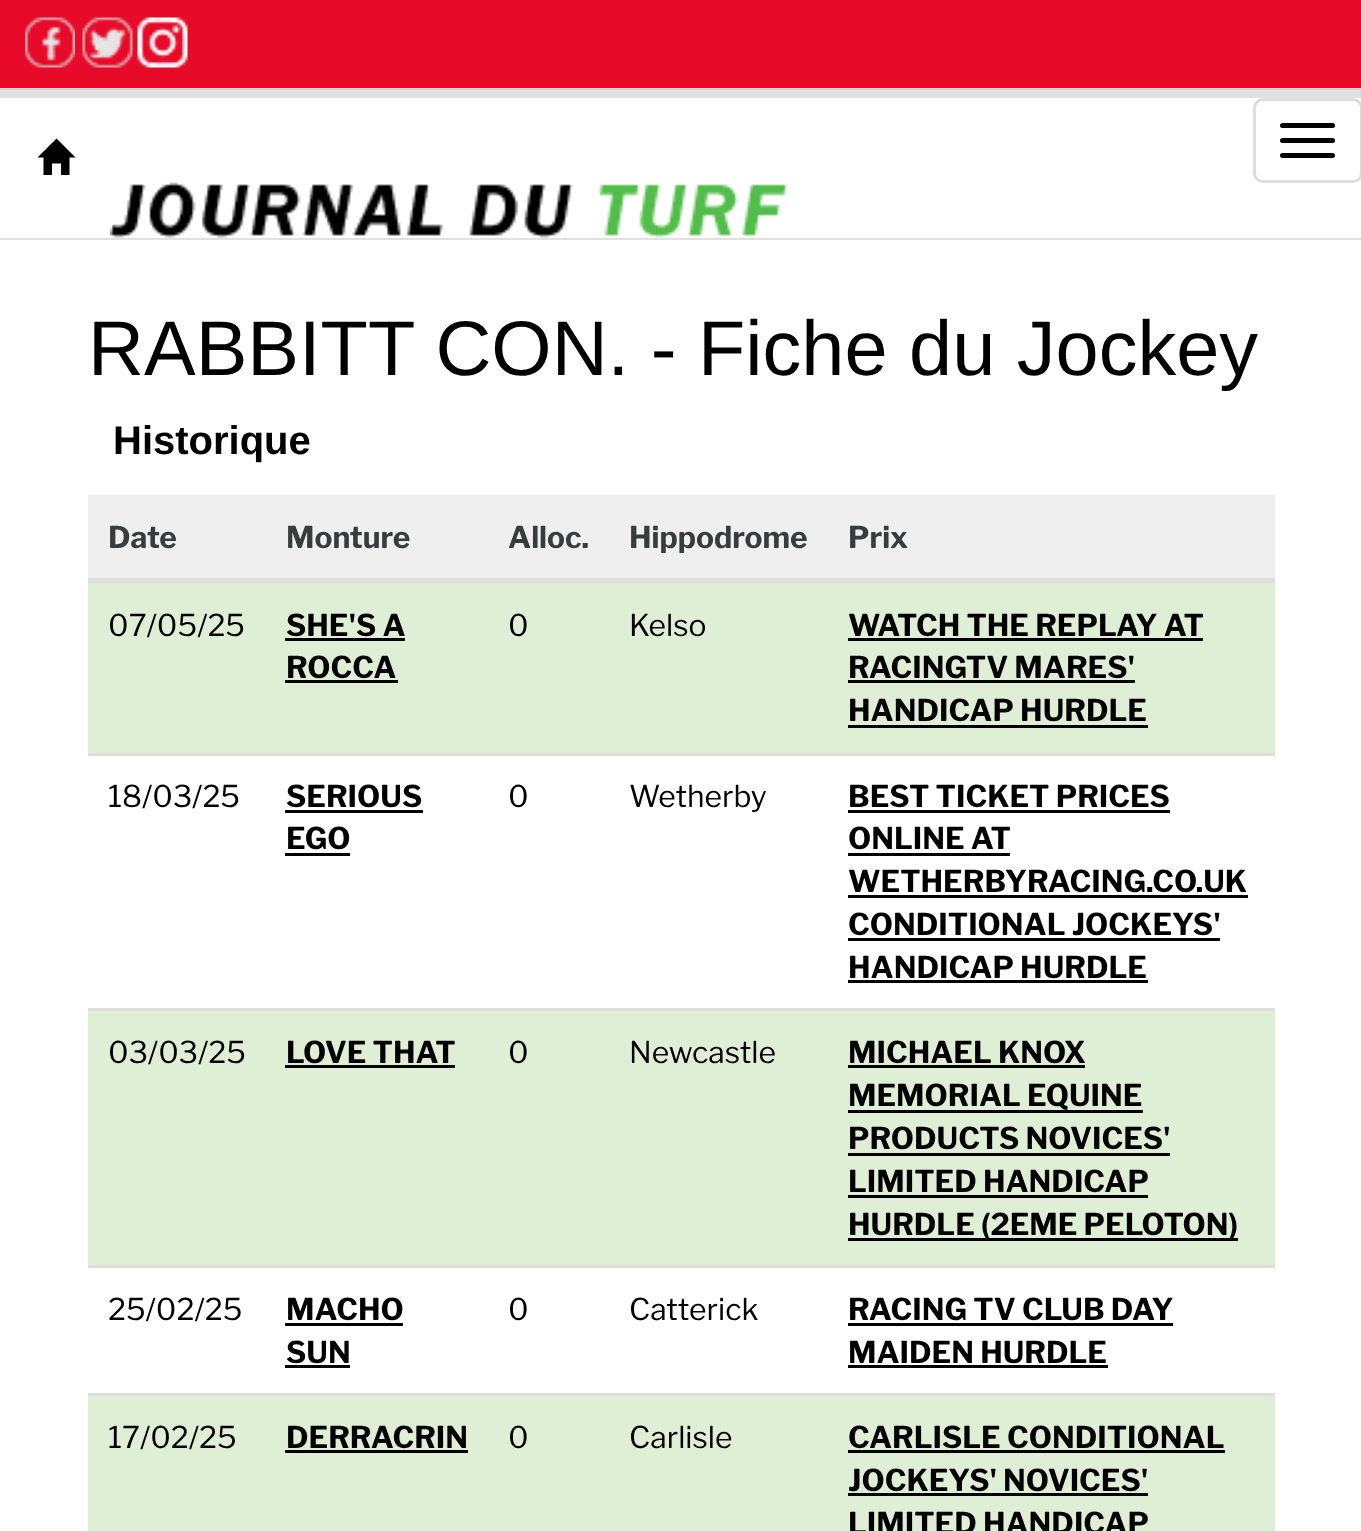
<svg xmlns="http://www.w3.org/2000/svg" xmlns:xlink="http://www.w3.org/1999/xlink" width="1361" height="1531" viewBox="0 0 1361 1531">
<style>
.cls-1{font:77.5px Liberation Sans;fill:#000000}
.cls-2{font:bold 40px Liberation Sans;fill:#000000}
.cls-3{font:bold 30px Libre Franklin;fill:#393c3d}
.cls-4{font:30px Libre Franklin;fill:#000000}
.cls-5{font:bold 30px Libre Franklin;fill:#000000}
</style>
<rect width="100%" height="100%" fill="#ffffff"/>
<rect fill="#e80a29" x="0" y="0" width="1361" height="88"/>
<rect fill="#d2d6db" x="0" y="88" width="1361" height="2"/>
<image xlink:href="image0.png" x="25" y="17" width="50" height="51"/>
<image xlink:href="image1.png" x="82" y="17" width="51" height="51"/>
<image xlink:href="image2.png" x="137" y="17" width="51" height="51"/>
<rect fill="#e1e1e1" x="0" y="90" width="1361" height="6"/>
<rect fill="#e1e1e1" x="0" y="96" width="1361" height="2"/>
<rect fill="#e1e1e1" x="0" y="238" width="1361" height="2"/>
<path fill="#000000" d="M75.5 157.5H69.5V175H61V163.5H52V175H43.5V157.5H37.5L56.5 138.5Z"/>
<rect fill="none" stroke="#dddddd" stroke-width="3" x="1254.5" y="99.5" width="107" height="82" rx="8.5"/>
<rect fill="#000000" x="1280" y="123" width="55" height="5" rx="2.5"/>
<rect fill="#000000" x="1280" y="138" width="55" height="5" rx="2.5"/>
<rect fill="#000000" x="1280" y="153" width="55" height="5" rx="2.5"/>
<image xlink:href="image3.png" x="110" y="182" width="678" height="56"/>
<rect fill="#efefef" x="1268" y="495" width="7" height="85"/>
<rect fill="#dfefd6" x="1268" y="580" width="7" height="173"/>
<rect fill="#dddddd" x="88" y="578" width="1187" height="5"/>
<rect fill="#efefef" x="88" y="495" width="1180" height="83"/>
<rect fill="#dfefd6" x="88" y="583" width="1180" height="170"/>
<rect fill="#000000" x="285" y="638" width="120" height="3"/>
<rect fill="#000000" x="285" y="680" width="113" height="3"/>
<rect fill="#000000" x="848" y="638" width="355" height="3"/>
<rect fill="#000000" x="848" y="680" width="287" height="3"/>
<rect fill="#000000" x="848" y="725" width="300" height="3"/>
<rect fill="#dddddd" x="88" y="753" width="1187" height="3"/>
<rect fill="#000000" x="285" y="810" width="138" height="3"/>
<rect fill="#000000" x="285" y="853" width="65" height="3"/>
<rect fill="#000000" x="848" y="810" width="322" height="3"/>
<rect fill="#000000" x="848" y="853" width="162" height="3"/>
<rect fill="#000000" x="848" y="895" width="400" height="3"/>
<rect fill="#000000" x="848" y="938" width="372" height="3"/>
<rect fill="#000000" x="848" y="980" width="300" height="3"/>
<rect fill="#dfefd6" x="1268" y="1010" width="7" height="258"/>
<rect fill="#dddddd" x="88" y="1008" width="1187" height="3"/>
<rect fill="#dfefd6" x="88" y="1011" width="1180" height="254"/>
<rect fill="#000000" x="285" y="1065" width="170" height="3"/>
<rect fill="#000000" x="848" y="1065" width="237" height="3"/>
<rect fill="#000000" x="848" y="1110" width="295" height="3"/>
<rect fill="#000000" x="848" y="1153" width="322" height="3"/>
<rect fill="#000000" x="848" y="1195" width="300" height="3"/>
<rect fill="#000000" x="848" y="1238" width="390" height="3"/>
<rect fill="#dddddd" x="88" y="1265" width="1187" height="3"/>
<rect fill="#000000" x="285" y="1323" width="118" height="3"/>
<rect fill="#000000" x="285" y="1365" width="65" height="3"/>
<rect fill="#000000" x="848" y="1323" width="325" height="3"/>
<rect fill="#000000" x="848" y="1365" width="260" height="3"/>
<rect fill="#dfefd6" x="1268" y="1395" width="7" height="136"/>
<rect fill="#dddddd" x="88" y="1393" width="1187" height="3"/>
<rect fill="#dfefd6" x="88" y="1396" width="1180" height="135"/>
<rect fill="#000000" x="285" y="1450" width="183" height="3"/>
<rect fill="#000000" x="848" y="1450" width="377" height="3"/>
<rect fill="#000000" x="848" y="1493" width="300" height="3"/>
<text class="cls-1" x="88" y="375">RABBITT CON. - Fiche du Jockey</text>
<text class="cls-2" x="113" y="454">Historique</text>
<text class="cls-3" x="108" y="548">Date</text>
<text class="cls-3" x="286" y="548">Monture</text>
<text class="cls-3" x="508" y="548">Alloc.</text>
<text class="cls-3" x="629" y="548">Hippodrome</text>
<text class="cls-3" x="848" y="548">Prix</text>
<text class="cls-4" x="108" y="636">07/05/25</text>
<text class="cls-5"><tspan x="286" y="636">SHE'S A</tspan><tspan x="286" y="678">ROCCA</tspan></text>
<text class="cls-4" x="508" y="636">0</text>
<text class="cls-4" x="629" y="636">Kelso</text>
<text class="cls-5"><tspan x="848" y="636">WATCH THE REPLAY AT</tspan><tspan x="848" y="678">RACINGTV MARES'</tspan><tspan x="848" y="721">HANDICAP HURDLE</tspan></text>
<text class="cls-4" x="108" y="807">18/03/25</text>
<text class="cls-5"><tspan x="286" y="807">SERIOUS</tspan><tspan x="286" y="849">EGO</tspan></text>
<text class="cls-4" x="508" y="807">0</text>
<text class="cls-4" x="629" y="807">Wetherby</text>
<text class="cls-5"><tspan x="848" y="807">BEST TICKET PRICES</tspan><tspan x="848" y="849">ONLINE AT</tspan><tspan x="848" y="892">WETHERBYRACING.CO.UK</tspan><tspan x="848" y="935">CONDITIONAL JOCKEYS'</tspan><tspan x="848" y="978">HANDICAP HURDLE</tspan></text>
<text class="cls-4" x="108" y="1063">03/03/25</text>
<text class="cls-5" x="286" y="1063">LOVE THAT</text>
<text class="cls-4" x="508" y="1063">0</text>
<text class="cls-4" x="629" y="1063">Newcastle</text>
<text class="cls-5"><tspan x="848" y="1063">MICHAEL KNOX</tspan><tspan x="848" y="1106">MEMORIAL EQUINE</tspan><tspan x="848" y="1149">PRODUCTS NOVICES'</tspan><tspan x="848" y="1192">LIMITED HANDICAP</tspan><tspan x="848" y="1235">HURDLE (2EME PELOTON)</tspan></text>
<text class="cls-4" x="108" y="1320">25/02/25</text>
<text class="cls-5"><tspan x="286" y="1320">MACHO</tspan><tspan x="286" y="1363">SUN</tspan></text>
<text class="cls-4" x="508" y="1320">0</text>
<text class="cls-4" x="629" y="1320">Catterick</text>
<text class="cls-5"><tspan x="848" y="1320">RACING TV CLUB DAY</tspan><tspan x="848" y="1363">MAIDEN HURDLE</tspan></text>
<text class="cls-4" x="108" y="1448">17/02/25</text>
<text class="cls-5" x="286" y="1448">DERRACRIN</text>
<text class="cls-4" x="508" y="1448">0</text>
<text class="cls-4" x="629" y="1448">Carlisle</text>
<text class="cls-5"><tspan x="848" y="1448">CARLISLE CONDITIONAL</tspan><tspan x="848" y="1491">JOCKEYS' NOVICES'</tspan><tspan x="848" y="1534">LIMITED HANDICAP</tspan></text>
</svg>
